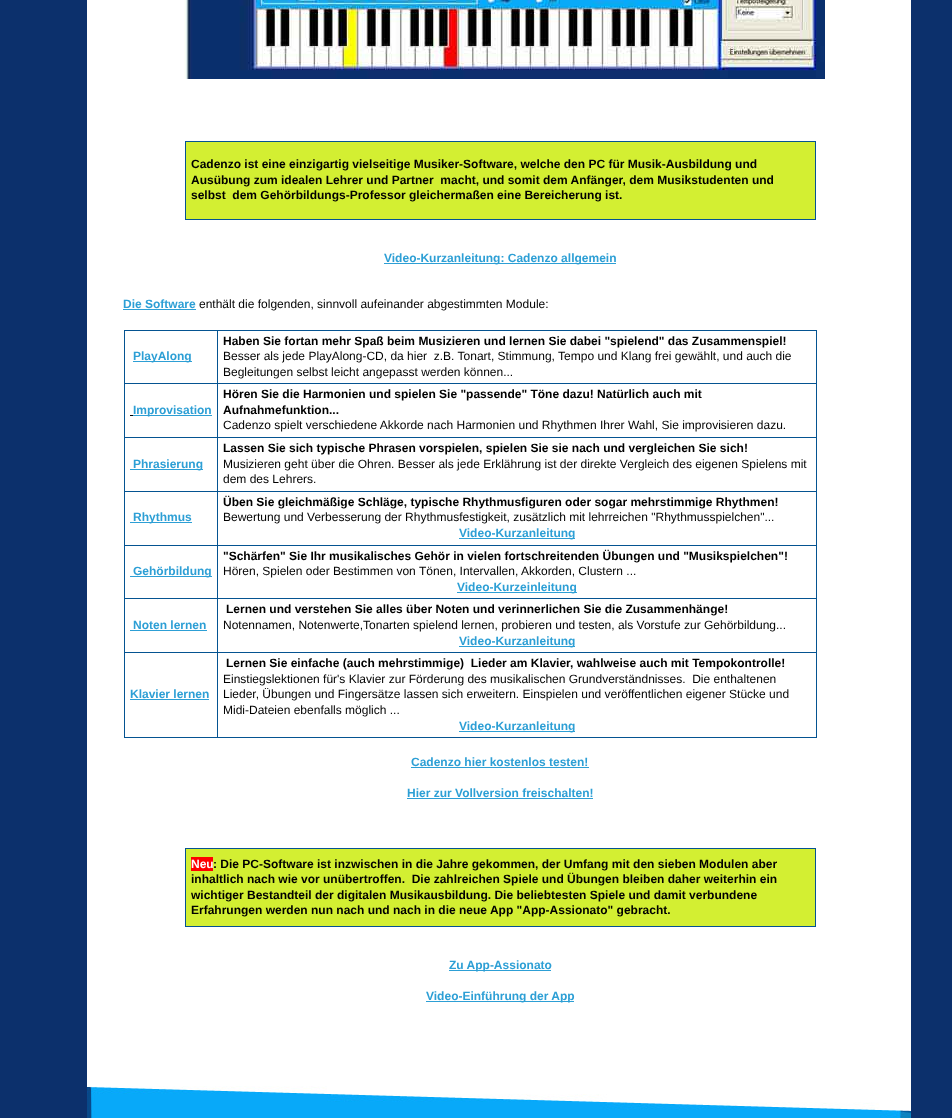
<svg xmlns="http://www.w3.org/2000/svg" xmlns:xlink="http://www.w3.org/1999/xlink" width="952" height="1118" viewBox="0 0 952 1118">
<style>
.cls-1{font:bold 12px Liberation Sans;fill:#000000}
.cls-2{font:bold 12px Liberation Sans;fill:#2d9fd5}
.cls-3{font:12px Liberation Sans;fill:#000000}
.cls-4{font:bold 12px Liberation Sans;fill:#ffffff}
</style>
<rect width="100%" height="100%" fill="#0c306c"/>
<rect fill="#ffffff" x="87" y="0" width="824" height="1086"/>
<image xlink:href="image0.png" x="184" y="0" width="641" height="79"/>
<rect fill="#055391" x="185" y="141" width="631" height="1"/>
<rect fill="#055391" x="815" y="141" width="1" height="79"/>
<rect fill="#055391" x="185" y="219" width="631" height="1"/>
<rect fill="#055391" x="185" y="141" width="1" height="79"/>
<rect fill="#d3ef32" x="186" y="142" width="629" height="77"/>
<rect fill="#2d9fd5" x="384" y="263" width="232" height="1"/>
<rect fill="#2d9fd5" x="123" y="309" width="73" height="1"/>
<rect fill="#055391" x="124" y="330" width="693" height="1"/>
<rect fill="#055391" x="816" y="330" width="1" height="408"/>
<rect fill="#055391" x="124" y="737" width="693" height="1"/>
<rect fill="#055391" x="124" y="330" width="1" height="408"/>
<rect fill="#2d9fd5" x="133" y="361" width="59" height="1"/>
<rect fill="#055391" x="217" y="383" width="600" height="1"/>
<rect fill="#055391" x="217" y="437" width="600" height="1"/>
<rect fill="#055391" x="217" y="491" width="600" height="1"/>
<rect fill="#055391" x="217" y="545" width="600" height="1"/>
<rect fill="#055391" x="217" y="598" width="600" height="1"/>
<rect fill="#055391" x="217" y="652" width="600" height="1"/>
<rect fill="#055391" x="217" y="652" width="1" height="86"/>
<rect fill="#055391" x="124" y="652" width="94" height="1"/>
<rect fill="#055391" x="217" y="598" width="1" height="55"/>
<rect fill="#055391" x="124" y="598" width="94" height="1"/>
<rect fill="#055391" x="217" y="545" width="1" height="54"/>
<rect fill="#055391" x="124" y="545" width="94" height="1"/>
<rect fill="#055391" x="217" y="491" width="1" height="55"/>
<rect fill="#055391" x="124" y="491" width="94" height="1"/>
<rect fill="#055391" x="217" y="437" width="1" height="55"/>
<rect fill="#055391" x="124" y="437" width="94" height="1"/>
<rect fill="#055391" x="217" y="383" width="1" height="55"/>
<rect fill="#055391" x="124" y="383" width="94" height="1"/>
<rect fill="#055391" x="217" y="330" width="1" height="54"/>
<rect fill="#000000" x="130" y="415" width="3" height="1"/>
<rect fill="#2d9fd5" x="133" y="415" width="79" height="1"/>
<rect fill="#2d9fd5" x="130" y="469" width="73" height="1"/>
<rect fill="#2d9fd5" x="130" y="522" width="62" height="1"/>
<rect fill="#2d9fd5" x="459" y="538" width="116" height="1"/>
<rect fill="#2d9fd5" x="130" y="576" width="82" height="1"/>
<rect fill="#2d9fd5" x="457" y="592" width="120" height="1"/>
<rect fill="#2d9fd5" x="130" y="630" width="77" height="1"/>
<rect fill="#2d9fd5" x="459" y="646" width="116" height="1"/>
<rect fill="#2d9fd5" x="130" y="699" width="79" height="1"/>
<rect fill="#2d9fd5" x="459" y="731" width="116" height="1"/>
<rect fill="#2d9fd5" x="411" y="767" width="178" height="1"/>
<rect fill="#2d9fd5" x="407" y="798" width="186" height="1"/>
<rect fill="#055391" x="185" y="848" width="631" height="1"/>
<rect fill="#055391" x="815" y="848" width="1" height="79"/>
<rect fill="#055391" x="185" y="926" width="631" height="1"/>
<rect fill="#055391" x="185" y="848" width="1" height="79"/>
<rect fill="#d3ef32" x="186" y="849" width="629" height="77"/>
<rect fill="#ff0000" x="191" y="857" width="22" height="14"/>
<rect fill="#2d9fd5" x="449" y="970" width="102" height="1"/>
<rect fill="#2d9fd5" x="426" y="1001" width="148" height="1"/>
<image xlink:href="image1.png" x="87" y="1086" width="824" height="32"/>
<text class="cls-1" xml:space="preserve"><tspan x="191" y="168">Cadenzo ist eine einzigartig vielseitige Musiker-Software, welche den PC für Musik-Ausbildung und</tspan><tspan x="191" y="184">Ausübung zum idealen Lehrer und Partner  macht, und somit dem Anfänger, dem Musikstudenten und</tspan><tspan x="191" y="199">selbst  dem Gehörbildungs-Professor gleichermaßen eine Bereicherung ist.</tspan></text>
<text class="cls-2" x="384" y="262">Video-Kurzanleitung: Cadenzo allgemein</text>
<text class="cls-2" x="123" y="308">Die Software</text>
<text class="cls-3" x="199" y="308">enthält die folgenden, sinnvoll aufeinander abgestimmten Module:</text>
<text class="cls-2" x="133" y="360">PlayAlong</text>
<text class="cls-1" x="223" y="345">Haben Sie fortan mehr Spaß beim Musizieren und lernen Sie dabei "spielend" das Zusammenspiel!</text>
<text class="cls-3" xml:space="preserve"><tspan x="223" y="360">Besser als jede PlayAlong-CD, da hier  z.B. Tonart, Stimmung, Tempo und Klang frei gewählt, und auch die</tspan><tspan x="223" y="376">Begleitungen selbst leicht angepasst werden können...</tspan></text>
<text class="cls-2" x="133" y="414">Improvisation</text>
<text class="cls-1"><tspan x="223" y="398">Hören Sie die Harmonien und spielen Sie "passende" Töne dazu! Natürlich auch mit</tspan><tspan x="223" y="414">Aufnahmefunktion...</tspan></text>
<text class="cls-3" x="223" y="429">Cadenzo spielt verschiedene Akkorde nach Harmonien und Rhythmen Ihrer Wahl, Sie improvisieren dazu.</text>
<text class="cls-2" x="133" y="468">Phrasierung</text>
<text class="cls-1" x="223" y="452">Lassen Sie sich typische Phrasen vorspielen, spielen Sie sie nach und vergleichen Sie sich!</text>
<text class="cls-3"><tspan x="223" y="468">Musizieren geht über die Ohren. Besser als jede Erklährung ist der direkte Vergleich des eigenen Spielens mit</tspan><tspan x="223" y="483">dem des Lehrers.</tspan></text>
<text class="cls-2" x="133" y="521">Rhythmus</text>
<text class="cls-1" x="223" y="506">Üben Sie gleichmäßige Schläge, typische Rhythmusfiguren oder sogar mehrstimmige Rhythmen!</text>
<text class="cls-3" x="223" y="521">Bewertung und Verbesserung der Rhythmusfestigkeit, zusätzlich mit lehrreichen "Rhythmusspielchen"...</text>
<text class="cls-2" x="459" y="537">Video-Kurzanleitung</text>
<text class="cls-2" x="133" y="575">Gehörbildung</text>
<text class="cls-1" x="223" y="560">"Schärfen" Sie Ihr musikalisches Gehör in vielen fortschreitenden Übungen und "Musikspielchen"!</text>
<text class="cls-3" x="223" y="575">Hören, Spielen oder Bestimmen von Tönen, Intervallen, Akkorden, Clustern ...</text>
<text class="cls-2" x="457" y="591">Video-Kurzeinleitung</text>
<text class="cls-2" x="133" y="629">Noten lernen</text>
<text class="cls-1" x="226" y="613">Lernen und verstehen Sie alles über Noten und verinnerlichen Sie die Zusammenhänge!</text>
<text class="cls-3" x="223" y="629">Notennamen, Notenwerte,Tonarten spielend lernen, probieren und testen, als Vorstufe zur Gehörbildung...</text>
<text class="cls-2" x="459" y="645">Video-Kurzanleitung</text>
<text class="cls-2" x="130" y="698">Klavier lernen</text>
<text class="cls-1" xml:space="preserve" x="226" y="667">Lernen Sie einfache (auch mehrstimmige)  Lieder am Klavier, wahlweise auch mit Tempokontrolle!</text>
<text class="cls-3" xml:space="preserve"><tspan x="223" y="683">Einstiegslektionen für's Klavier zur Förderung des musikalischen Grundverständnisses.  Die enthaltenen</tspan><tspan x="223" y="698">Lieder, Übungen und Fingersätze lassen sich erweitern. Einspielen und veröffentlichen eigener Stücke und</tspan><tspan x="223" y="714">Midi-Dateien ebenfalls möglich ...</tspan></text>
<text class="cls-2" x="459" y="730">Video-Kurzanleitung</text>
<text class="cls-2" x="411" y="766">Cadenzo hier kostenlos testen!</text>
<text class="cls-2" x="407" y="797">Hier zur Vollversion freischalten!</text>
<text class="cls-4" x="191" y="868">Neu</text>
<text class="cls-1" x="213" y="868">: Die PC-Software ist inzwischen in die Jahre gekommen, der Umfang mit den sieben Modulen aber</text>
<text class="cls-1" xml:space="preserve"><tspan x="191" y="883">inhaltlich nach wie vor unübertroffen.  Die zahlreichen Spiele und Übungen bleiben daher weiterhin ein</tspan><tspan x="191" y="899">wichtiger Bestandteil der digitalen Musikausbildung. Die beliebtesten Spiele und damit verbundene</tspan><tspan x="191" y="914">Erfahrungen werden nun nach und nach in die neue App "App-Assionato" gebracht.</tspan></text>
<text class="cls-2" x="449" y="969">Zu App-Assionato</text>
<text class="cls-2" x="426" y="1000">Video-Einführung der App</text>
</svg>
